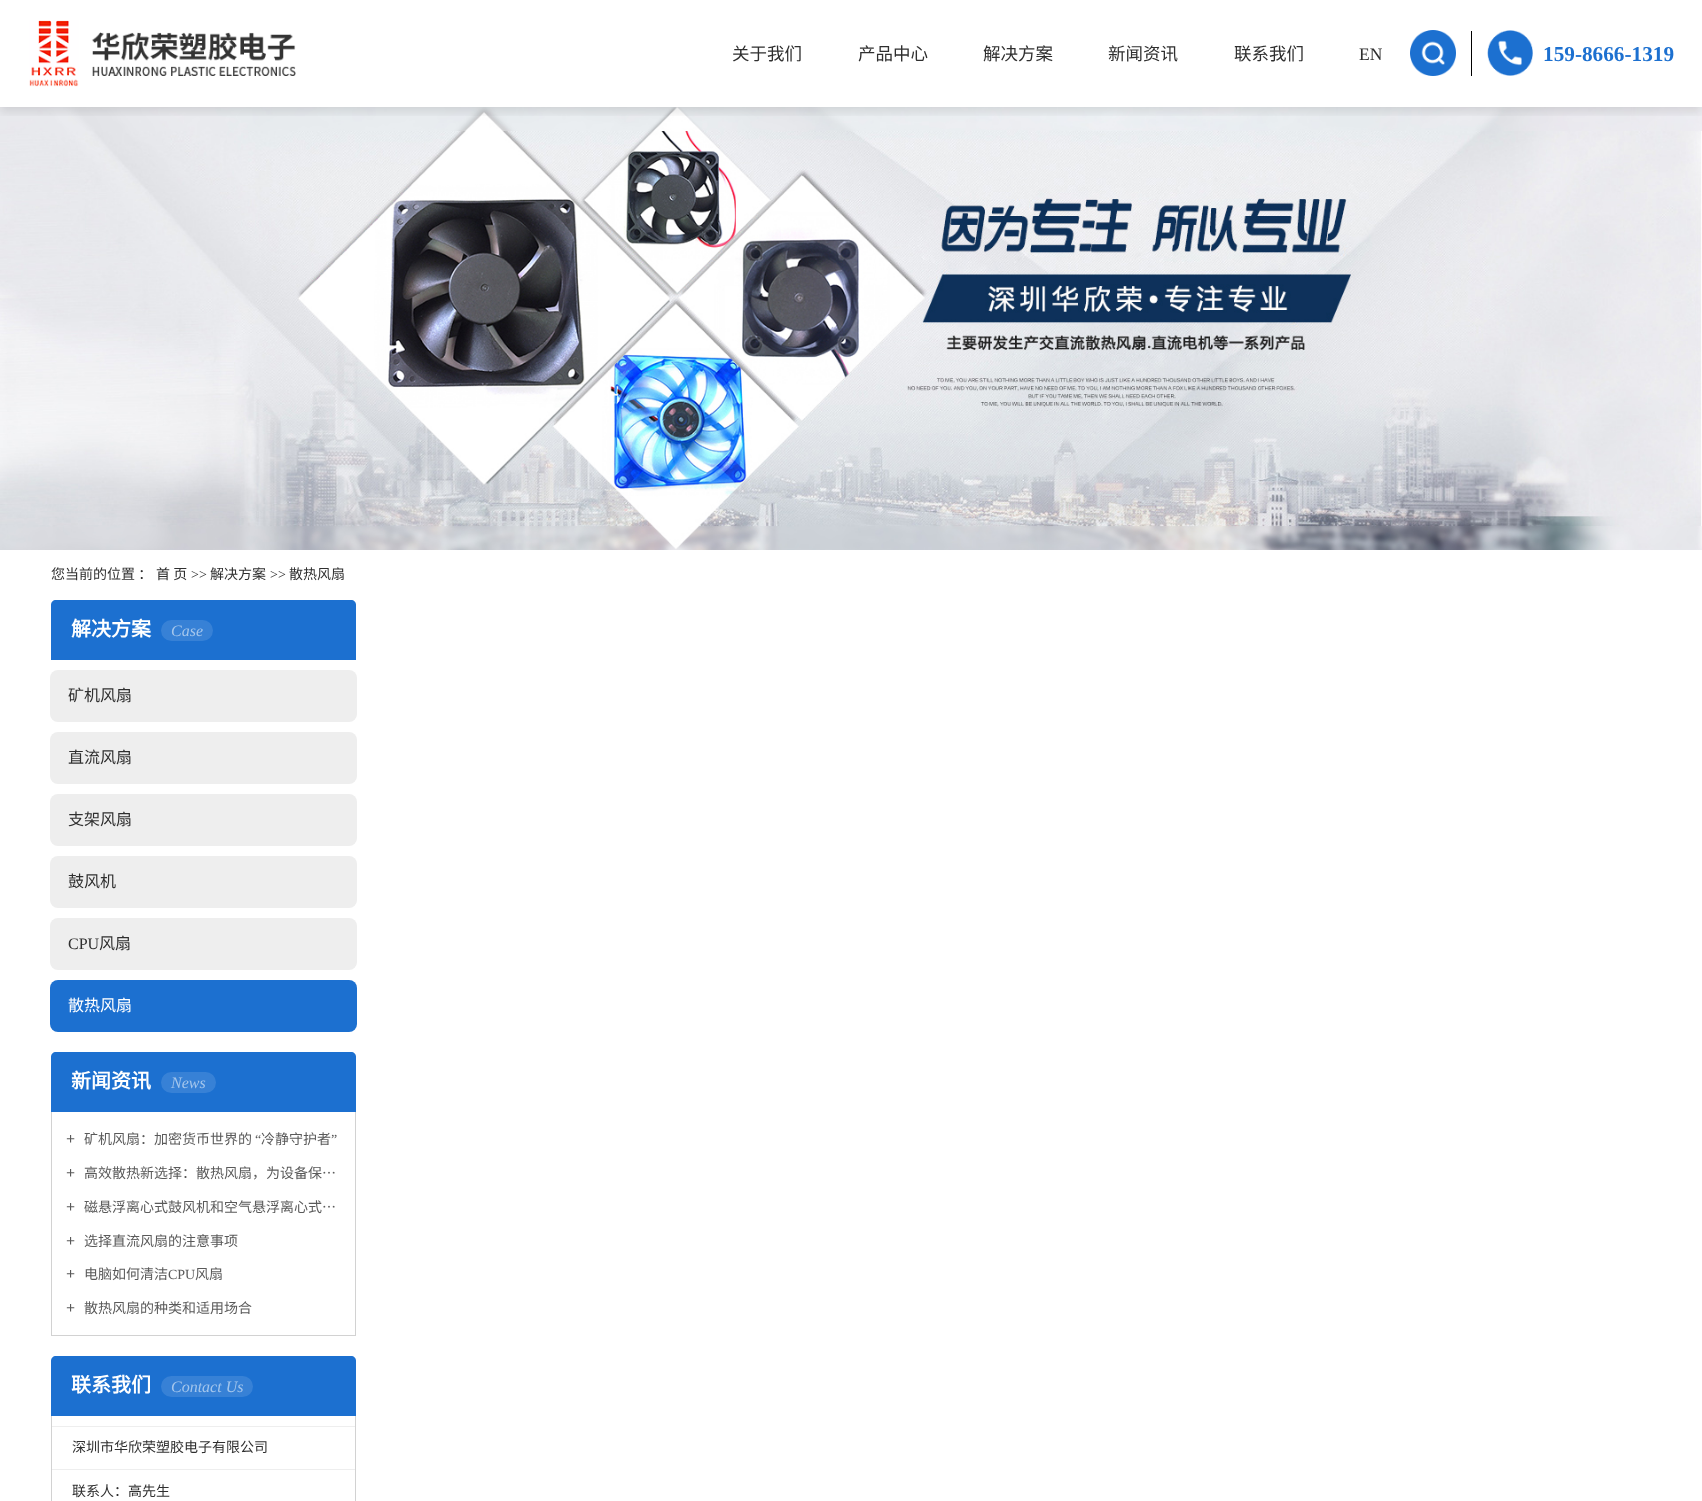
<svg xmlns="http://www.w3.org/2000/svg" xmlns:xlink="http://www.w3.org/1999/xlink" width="1702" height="1501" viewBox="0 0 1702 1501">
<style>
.cls-1{font:17.5px Noto Sans CJK SC;fill:#2f2f2f}
.cls-2{font:17.5px Liberation Serif;fill:#2f2f2f}
.cls-3{font:bold 21.25px Liberation Serif;fill:#1c70d0}
.cls-4{font:14px Noto Sans CJK SC;fill:#2f2f2f}
.cls-5{font:14px Liberation Serif;fill:#2f2f2f}
.cls-6{font:bold 20px Noto Sans CJK SC;fill:#ffffff}
.cls-7{font:italic 16px Liberation Serif;fill:#a4c6ec}
.cls-8{font:16px Noto Sans CJK SC;fill:#2f2f2f}
.cls-9{font:16px Liberation Serif;fill:#2f2f2f}
.cls-10{font:16px Noto Sans CJK SC;fill:#ffffff}
.cls-11{font:bold 16px Liberation Serif;fill:#5a5a5a}
.cls-12{font:14px Noto Sans CJK SC;fill:#5a5a5a}
.cls-13{font:14px Liberation Serif;fill:#5a5a5a}
</style>
<defs>
<clipPath id="clip1"><rect x="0" y="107" width="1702" height="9"/></clipPath>
</defs>
<rect width="100%" height="100%" fill="#ffffff"/>
<image xlink:href="image3.png" x="0" y="107" width="1702" height="443"/>
<g clip-path="url(#clip1)">
<rect fill="#000000" fill-opacity="0.1" filter="blur(5px)" x="0" y="5" width="1702" height="107"/>
</g>
<image xlink:href="image0.png" x="29" y="20" width="267" height="67"/>
<image xlink:href="image1.png" x="1410" y="30" width="46" height="46"/>
<rect fill="#000000" x="1471" y="31" width="1" height="45"/>
<image xlink:href="image2.png" x="1487" y="30" width="46" height="46"/>
<path fill="#1c70d0" d="M56 600H351C354 600 356 602 356 605V660H51V605C51 602 53 600 56 600Z"/>
<rect fill="#3781d6" x="161" y="620" width="52" height="21" rx="10.5"/>
<rect fill="#eeeeee" x="50" y="670" width="307" height="52" rx="8"/>
<rect fill="#eeeeee" x="50" y="732" width="307" height="52" rx="8"/>
<rect fill="#eeeeee" x="50" y="794" width="307" height="52" rx="8"/>
<rect fill="#eeeeee" x="50" y="856" width="307" height="52" rx="8"/>
<rect fill="#eeeeee" x="50" y="918" width="307" height="52" rx="8"/>
<rect fill="#1c70d0" x="50" y="980" width="307" height="52" rx="8"/>
<path fill="#1c70d0" d="M56 1052H351C354 1052 356 1054 356 1057V1112H51V1057C51 1054 53 1052 56 1052Z"/>
<rect fill="#3781d6" x="161" y="1072" width="55" height="21" rx="10.5"/>
<rect fill="#d2d2d2" x="355" y="1112" width="1" height="224"/>
<rect fill="#d2d2d2" x="51" y="1335" width="305" height="1"/>
<rect fill="#d2d2d2" x="51" y="1112" width="1" height="224"/>
<path fill="#1c70d0" d="M56 1356H351C354 1356 356 1358 356 1361V1416H51V1361C51 1358 53 1356 56 1356Z"/>
<rect fill="#3781d6" x="161" y="1376" width="92" height="21" rx="10.5"/>
<rect fill="#d2d2d2" x="355" y="1416" width="1" height="85"/>
<rect fill="#d2d2d2" x="51" y="1416" width="1" height="85"/>
<rect fill="#eeeeee" x="52" y="1426" width="303" height="1"/>
<rect fill="#eeeeee" x="52" y="1469" width="303" height="1"/>
<text class="cls-1" x="732" y="60">关于我们</text>
<text class="cls-1" x="858" y="60">产品中心</text>
<text class="cls-1" x="983" y="60">解决方案</text>
<text class="cls-1" x="1108" y="60">新闻资讯</text>
<text class="cls-1" x="1234" y="60">联系我们</text>
<text class="cls-2" x="1359" y="60">EN</text>
<text class="cls-3" x="1543" y="61">159-8666-1319</text>
<text class="cls-4" x="51" y="579">您当前的位置 ：</text>
<text class="cls-4" x="156" y="579">首 页</text>
<text class="cls-5" x="191" y="579">&gt;&gt;</text>
<text class="cls-4" x="210" y="579">解决方案</text>
<text class="cls-5" x="270" y="579">&gt;&gt;</text>
<text class="cls-4" x="289" y="579">散热风扇</text>
<text class="cls-6" x="71" y="636">解决方案</text>
<text class="cls-7" x="171" y="636">Case</text>
<text class="cls-8" x="68" y="701">矿机风扇</text>
<text class="cls-8" x="68" y="763">直流风扇</text>
<text class="cls-8" x="68" y="825">支架风扇</text>
<text class="cls-8" x="68" y="887">鼓风机</text>
<text class="cls-9" x="68" y="949">CPU</text>
<text class="cls-8" x="99" y="949">风扇</text>
<text class="cls-10" x="68" y="1011">散热风扇</text>
<text class="cls-6" x="71" y="1088">新闻资讯</text>
<text class="cls-7" x="171" y="1088">News</text>
<text class="cls-11" x="66" y="1144">+</text>
<text class="cls-12" x="84" y="1144">矿机风扇：加密货币世界的</text>
<text class="cls-13" x="255" y="1144">“</text>
<text class="cls-12" x="261" y="1144">冷静守护者</text>
<text class="cls-13" x="331" y="1144">”</text>
<text class="cls-11" x="66" y="1178">+</text>
<text class="cls-12" x="84" y="1178">高效散热新选择：散热风扇，为设备保…</text>
<text class="cls-11" x="66" y="1212">+</text>
<text class="cls-12" x="84" y="1212">磁悬浮离心式鼓风机和空气悬浮离心式…</text>
<text class="cls-11" x="66" y="1246">+</text>
<text class="cls-12" x="84" y="1246">选择直流风扇的注意事项</text>
<text class="cls-11" x="66" y="1279">+</text>
<text class="cls-12" x="84" y="1279">电脑如何清洁</text>
<text class="cls-13" x="168" y="1279">CPU</text>
<text class="cls-12" x="195" y="1279">风扇</text>
<text class="cls-11" x="66" y="1313">+</text>
<text class="cls-12" x="84" y="1313">散热风扇的种类和适用场合</text>
<text class="cls-6" x="71" y="1392">联系我们</text>
<text class="cls-7" x="171" y="1392">Contact Us</text>
<text class="cls-4" x="72" y="1452">深圳市华欣荣塑胶电子有限公司</text>
<text class="cls-4" x="72" y="1496">联系人：高先生</text>
</svg>
